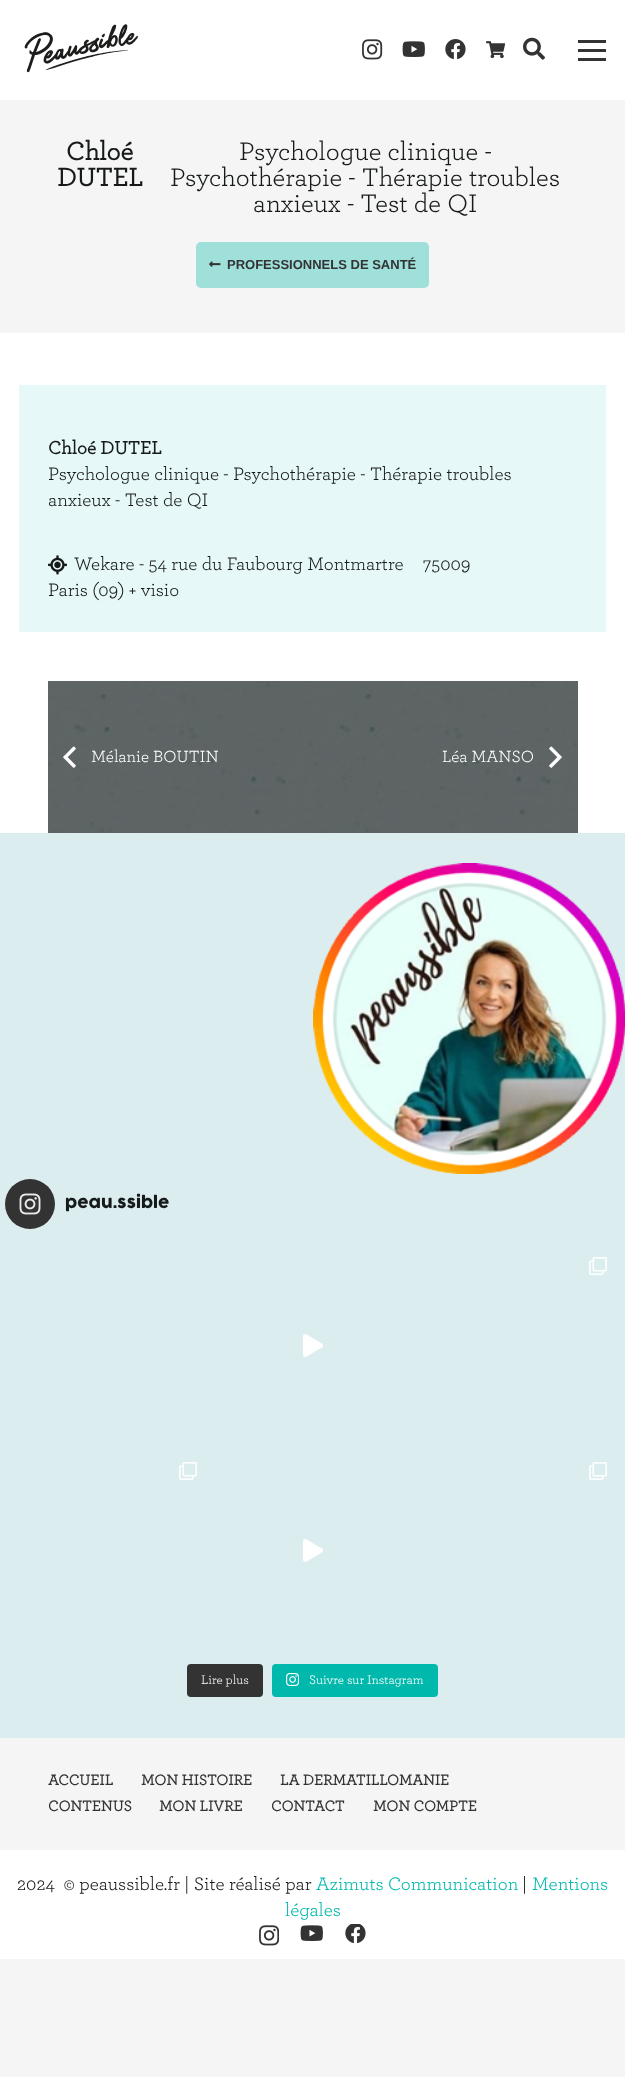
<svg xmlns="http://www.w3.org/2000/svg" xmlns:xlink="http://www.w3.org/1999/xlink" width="625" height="2077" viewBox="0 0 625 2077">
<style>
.cls-1{font:bold 26.6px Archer;fill:#171a1a}
.cls-2{font:26.6px Archer;fill:#171a1a}
.cls-3{font:bold 13px Liberation Sans;fill:#333333}
.cls-4{font:bold 19px Archer;fill:#171a1a}
.cls-5{font:19px Archer;fill:#171a1a}
.cls-6{font:17px Archer;fill:#ffffff}
.cls-7{font:16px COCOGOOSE;fill:#171a1a}
.cls-8{font:13px Archer;fill:#ffffff}
.cls-9{font:bold 15.25px Archer;fill:#333333}
.cls-10{font:19px Archer;fill:#00b8ac}
</style>
<rect width="100%" height="100%" fill="#f5f5f5"/>
<rect fill="#ffffff" x="0" y="333" width="625" height="500"/>
<rect fill="#ffffff" x="0" y="0" width="625" height="100"/>
<image xlink:href="image0.png" x="24" y="24" width="114" height="49"/>
<image xlink:href="image1.png" x="362" y="39" width="21" height="21"/>
<image xlink:href="image2.png" x="402" y="41" width="23" height="16"/>
<image xlink:href="image3.png" x="445" y="39" width="21" height="21"/>
<image xlink:href="image4.png" x="486" y="41" width="20" height="18"/>
<image xlink:href="image5.png" x="523" y="37" width="22" height="23"/>
<rect fill="#333333" x="578" y="49" width="28" height="3"/>
<rect fill="#333333" x="578" y="40" width="28" height="3"/>
<rect fill="#333333" x="578" y="58" width="28" height="3"/>
<rect fill="#9fe0db" x="196" y="242" width="233" height="46" rx="5"/>
<image xlink:href="image6.png" x="209" y="261" width="12" height="6"/>
<rect fill="#e6f8f7" x="19" y="385" width="587" height="247"/>
<image xlink:href="image7.png" x="48" y="555" width="19" height="20"/>
<image xlink:href="image8.png" x="48" y="681" width="265" height="152"/>
<image xlink:href="image9.png" x="63" y="746" width="13" height="22"/>
<image xlink:href="image8.png" x="313" y="681" width="265" height="152"/>
<image xlink:href="image10.png" x="549" y="746" width="13" height="22"/>
<rect fill="#ffffff" x="0" y="1850" width="625" height="109"/>
<rect fill="#dbedef" x="0" y="833" width="625" height="905"/>
<image xlink:href="image11.png" x="313" y="863" width="312" height="311"/>
<circle fill="#333333" cx="30" cy="1204" r="25"/>
<image xlink:href="image12.png" x="19" y="1193" width="22" height="22"/>
<image xlink:href="image13.png" x="589" y="1257" width="18" height="18"/>
<image xlink:href="image14.png" x="303" y="1334" width="20" height="23"/>
<image xlink:href="image13.png" x="179" y="1462" width="18" height="18"/>
<image xlink:href="image13.png" x="589" y="1462" width="18" height="18"/>
<image xlink:href="image14.png" x="303" y="1539" width="20" height="23"/>
<rect fill="#333333" x="187" y="1664" width="76" height="33" rx="4"/>
<rect fill="#00b8ac" x="272" y="1664" width="166" height="33" rx="4"/>
<image xlink:href="image15.png" x="286" y="1673" width="13" height="13"/>
<image xlink:href="image16.png" x="259" y="1925" width="20" height="21"/>
<image xlink:href="image2.png" x="300" y="1925" width="23" height="16"/>
<image xlink:href="image17.png" x="345" y="1924" width="21" height="20"/>
<text class="cls-1" x="66" y="160">Chloé</text>
<text class="cls-1" x="57" y="186">DUTEL</text>
<text class="cls-2" x="239" y="160">Psychologue clinique -</text>
<text class="cls-2" x="170" y="186">Psychothérapie - Thérapie troubles</text>
<text class="cls-2" x="253" y="212">anxieux - Test de QI</text>
<text class="cls-3" x="227" y="269">PROFESSIONNELS DE SANTÉ</text>
<text class="cls-4" x="48" y="454">Chloé DUTEL</text>
<text class="cls-5"><tspan x="48" y="480">Psychologue clinique - Psychothérapie - Thérapie troubles</tspan><tspan x="48" y="506">anxieux - Test de QI</tspan></text>
<text class="cls-5" x="74" y="570">Wekare - 54 rue du Faubourg Montmartre</text>
<text class="cls-5" x="423" y="570">75009</text>
<text class="cls-5" x="48" y="596">Paris (09) + visio</text>
<text class="cls-6" x="91" y="762">Mélanie BOUTIN</text>
<text class="cls-6" x="442" y="762">Léa MANSO</text>
<text class="cls-7" x="65" y="1208">peau.ssible</text>
<text class="cls-8" x="201" y="1684">Lire plus</text>
<text class="cls-8" x="309" y="1684">Suivre sur Instagram</text>
<text class="cls-9" x="48" y="1785">ACCUEIL</text>
<text class="cls-9" x="141" y="1785">MON HISTOIRE</text>
<text class="cls-9" x="280" y="1785">LA DERMATILLOMANIE</text>
<text class="cls-9" x="48" y="1811">CONTENUS</text>
<text class="cls-9" x="159" y="1811">MON LIVRE</text>
<text class="cls-9" x="271" y="1811">CONTACT</text>
<text class="cls-9" x="373" y="1811">MON COMPTE</text>
<text class="cls-5" xml:space="preserve" x="17" y="1890">2024  © peaussible.fr | Site réalisé par</text>
<text class="cls-10" x="316" y="1890">Azimuts Communication</text>
<text class="cls-5" x="522" y="1890">|</text>
<text class="cls-10" x="532" y="1890">Mentions</text>
<text class="cls-10" x="285" y="1916">légales</text>
</svg>
